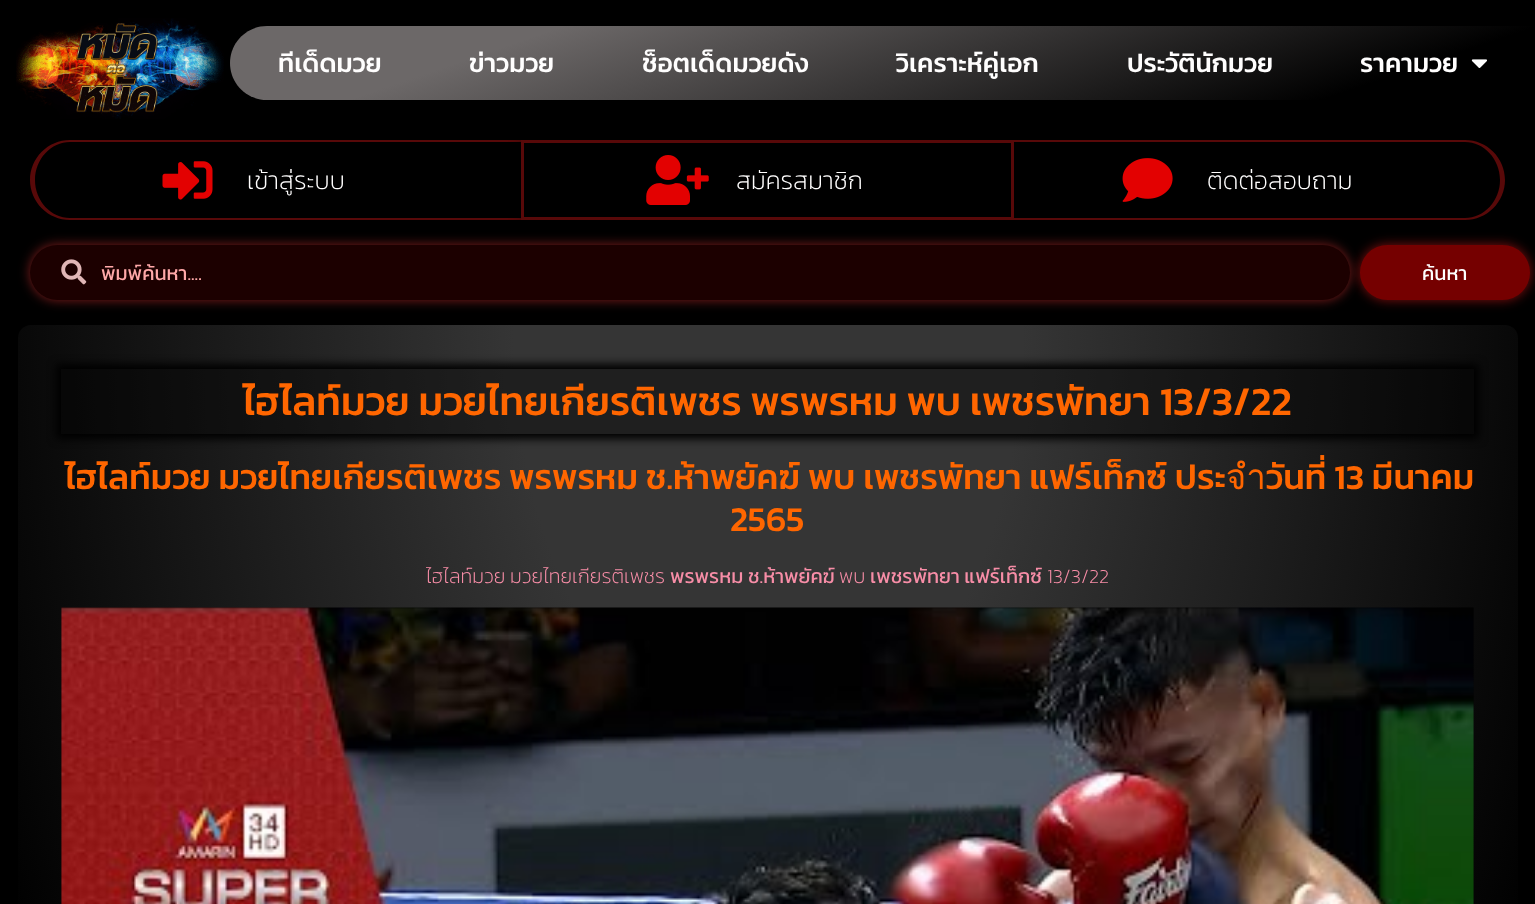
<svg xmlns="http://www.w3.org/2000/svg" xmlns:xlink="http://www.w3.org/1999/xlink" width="1535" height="904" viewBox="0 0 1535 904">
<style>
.cls-1{font:500 26.25px Kanit;fill:#fffefe}
.cls-2{font:200 25px Kanit;fill:#fffefe}
.cls-3{font:20px Kanit;fill:#ffa8a8}
.cls-4{font:20px Kanit;fill:#fffefe}
.cls-5{font:500 40px Kanit;fill:#ff6600}
.cls-6{font:500 35px Kanit;fill:#ff6600}
.cls-7{font:200 20px Kanit;fill:#f78da7}
.cls-8{font:20px Kanit;fill:#f78da7}
</style>
<defs>
<linearGradient id="g1" gradientUnits="userSpaceOnUse" x1="802" y1="-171" x2="963" y2="297"><stop offset="0.22" stop-color="#6c6868"/><stop offset="0.86" stop-color="#000000"/></linearGradient>
<clipPath id="clip1"><path d="M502 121H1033V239H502ZM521 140H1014V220H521Z" clip-rule="evenodd"/></clipPath>
<radialGradient id="g2" gradientUnits="userSpaceOnUse" cx="0" cy="0" r="1" gradientTransform="matrix(1061 0 0 1796 768 325)"><stop offset="0.24" stop-color="#353535"/><stop offset="0.79" stop-color="#000000"/></radialGradient>
<clipPath id="clip2"><path d="M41 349H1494V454H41ZM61 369H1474V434H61Z" clip-rule="evenodd"/></clipPath>
<clipPath id="clip3"><rect x="101" y="258" width="1224" height="30"/></clipPath>
</defs>
<rect width="100%" height="100%" fill="#000000"/>
<image xlink:href="image0.png" x="16" y="18" width="208" height="101"/>
<path fill="url(#g1)" d="M267 26H1535V100H267C246.5 100 230 83.5 230 63C230 42.5 246.5 26 267 26Z"/>
<image xlink:href="image1.png" x="1471" y="59" width="16" height="9"/>
<path fill="#580909" fill-rule="evenodd" d="M70 140H521V220H70C48 220 30 202 30 180C30 158 48 140 70 140ZM70 142H521V218H70C51 218 35 201 35 180C35 159 51 142 70 142Z"/>
<image xlink:href="image2.png" x="162" y="161" width="51" height="39"/>
<g clip-path="url(#clip1)">
<rect fill="#000000" fill-opacity="0.5" filter="blur(6px)" x="521" y="140" width="493" height="80"/>
</g>
<rect fill="none" stroke="#580909" stroke-width="3" x="522.5" y="141.5" width="490" height="77"/>
<image xlink:href="image3.png" x="646" y="155" width="63" height="50"/>
<path fill="#580909" fill-rule="evenodd" d="M1014 140H1465C1487 140 1505 158 1505 180C1505 202 1487 220 1465 220H1014ZM1014 142H1465C1484 142 1500 159 1500 180C1500 201 1484 218 1465 218H1014Z"/>
<image xlink:href="image4.png" x="1122" y="158" width="51" height="44"/>
<rect fill="#ff1b1b" fill-opacity="0.5" filter="blur(6px)" x="1360" y="245" width="170" height="55" rx="27.5"/>
<rect fill="#750000" x="1360" y="245" width="170" height="55" rx="27.5"/>
<rect fill="#ff3838" fill-opacity="0.5" filter="blur(6px)" x="30" y="245" width="1320" height="55" rx="27.5"/>
<rect fill="#1c0000" x="30" y="245" width="1320" height="55" rx="27.5"/>
<image xlink:href="image5.png" x="61" y="259" width="26" height="26"/>
<rect fill="url(#g2)" x="18" y="325" width="1500" height="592" rx="13"/>
<g clip-path="url(#clip2)">
<rect fill="#000000" filter="blur(4.5px)" x="56" y="364" width="1423" height="75"/>
</g>
<rect fill="#000000" fill-opacity="0.4" x="61" y="369" width="1413" height="65"/>
<image xlink:href="image6.png" x="61" y="607" width="1413" height="297"/>
<text class="cls-1" x="278" y="72">ทีเด็ดมวย</text>
<text class="cls-1" x="469" y="72">ข่าวมวย</text>
<text class="cls-1" x="642" y="72">ช็อตเด็ดมวยดัง</text>
<text class="cls-1" x="896" y="72">วิเคราะห์คู่เอก</text>
<text class="cls-1" x="1127" y="72">ประวัตินักมวย</text>
<text class="cls-1" x="1360" y="72">ราคามวย</text>
<text class="cls-2" x="247" y="189">เข้าสู่ระบบ</text>
<text class="cls-2" x="736" y="189">สมัครสมาชิก</text>
<text class="cls-2" x="1207" y="189">ติดต่อสอบถาม</text>
<g clip-path="url(#clip3)">
<text class="cls-3" x="101" y="280">พิมพ์ค้นหา....</text>
</g>
<text class="cls-4" x="1422" y="280">ค้นหา</text>
<text class="cls-5" x="243" y="415">ไฮไลท์มวย มวยไทยเกียรติเพชร พรพรหม พบ เพชรพัทยา 13/3/22</text>
<text class="cls-6" x="65" y="489">ไฮไลท์มวย มวยไทยเกียรติเพชร พรพรหม ช.ห้าพยัคฆ์ พบ เพชรพัทยา แฟร์เท็กซ์ ประจำวันที่ 13 มีนาคม</text>
<text class="cls-6" x="730" y="531">2565</text>
<text class="cls-7" x="426" y="583">ไฮไลท์มวย มวยไทยเกียรติเพชร</text>
<text class="cls-8" x="670" y="583">พรพรหม ช.ห้าพยัคฆ์</text>
<text class="cls-7" x="839" y="583">พบ</text>
<text class="cls-8" x="870" y="583">เพชรพัทยา แฟร์เท็กซ์</text>
<text class="cls-7" x="1047" y="583">13/3/22</text>
</svg>
